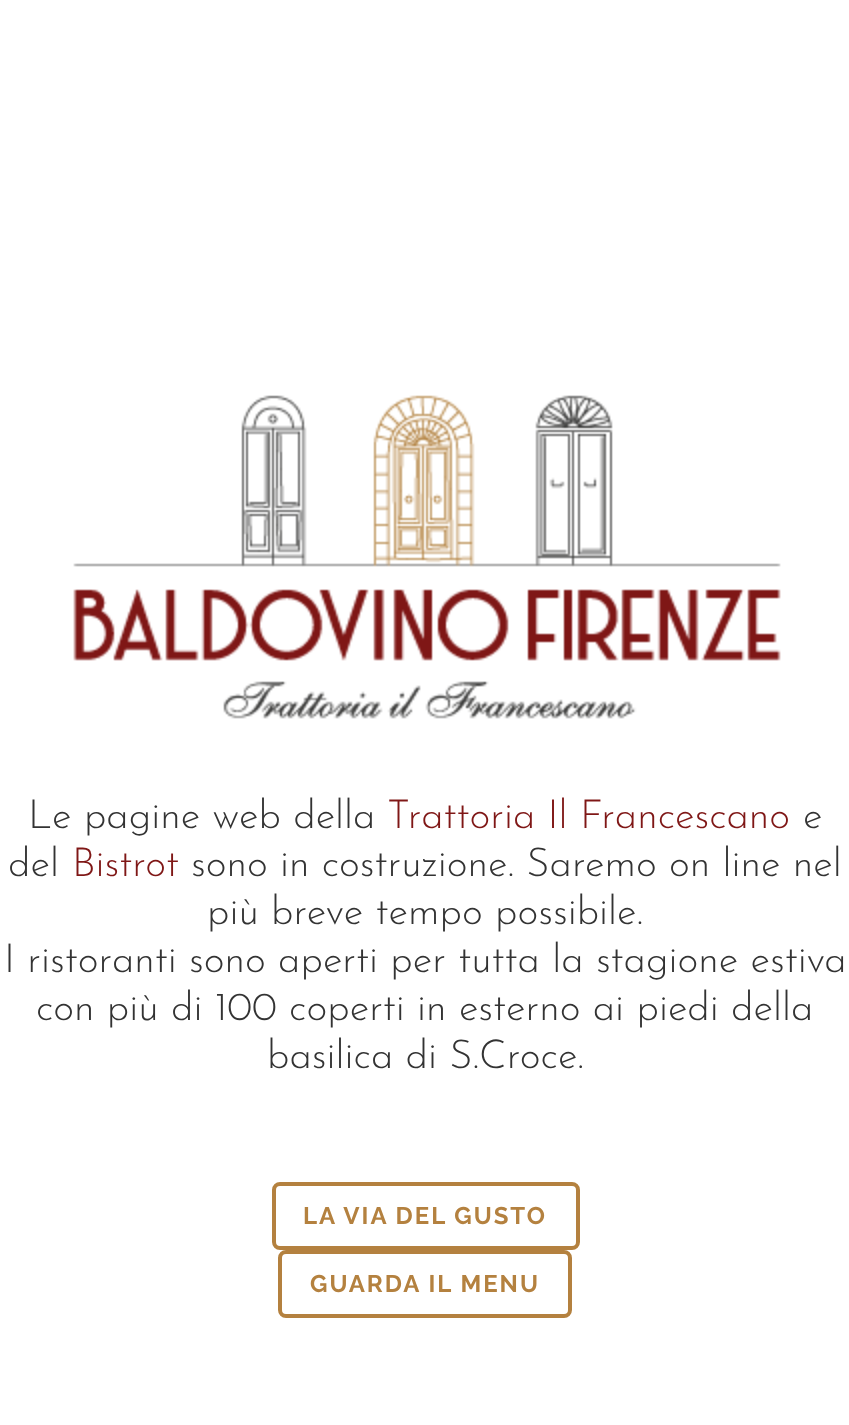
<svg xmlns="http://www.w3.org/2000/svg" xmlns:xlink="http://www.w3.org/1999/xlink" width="849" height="1425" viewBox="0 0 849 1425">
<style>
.cls-1{font:300 40px Josefin Sans;fill:#333333}
.cls-2{font:300 40px Josefin Sans;fill:#7f1716}
.cls-3{font:bold 24px Raleway;letter-spacing:2px;fill:#b4813f}
</style>
<rect width="100%" height="100%" fill="#ffffff"/>
<image xlink:href="image0.png" x="73" y="395" width="708" height="324"/>
<rect fill="none" stroke="#b4813f" stroke-width="4" x="274" y="1184" width="304" height="64" rx="6"/>
<rect fill="none" stroke="#b4813f" stroke-width="4" x="280" y="1252" width="290" height="64" rx="6"/>
<text class="cls-1" x="28" y="828">Le pagine web della</text>
<text class="cls-2" x="387" y="828">Trattoria Il Francescano</text>
<text class="cls-1" x="803" y="828">e</text>
<text class="cls-1" x="8" y="876">del</text>
<text class="cls-2" x="72" y="876">Bistrot</text>
<text class="cls-1" x="191" y="876">sono in costruzione. Saremo on line nel</text>
<text class="cls-1" x="207" y="924">più breve tempo possibile.</text>
<text class="cls-1" x="4" y="972">I ristoranti sono aperti per tutta la stagione estiva</text>
<text class="cls-1" x="36" y="1020">con più di 100 coperti in esterno ai piedi della</text>
<text class="cls-1" x="267" y="1068">basilica di S.Croce.</text>
<text class="cls-3" x="303" y="1224">LA VIA DEL GUSTO</text>
<text class="cls-3" x="310" y="1292">GUARDA IL MENU</text>
</svg>
